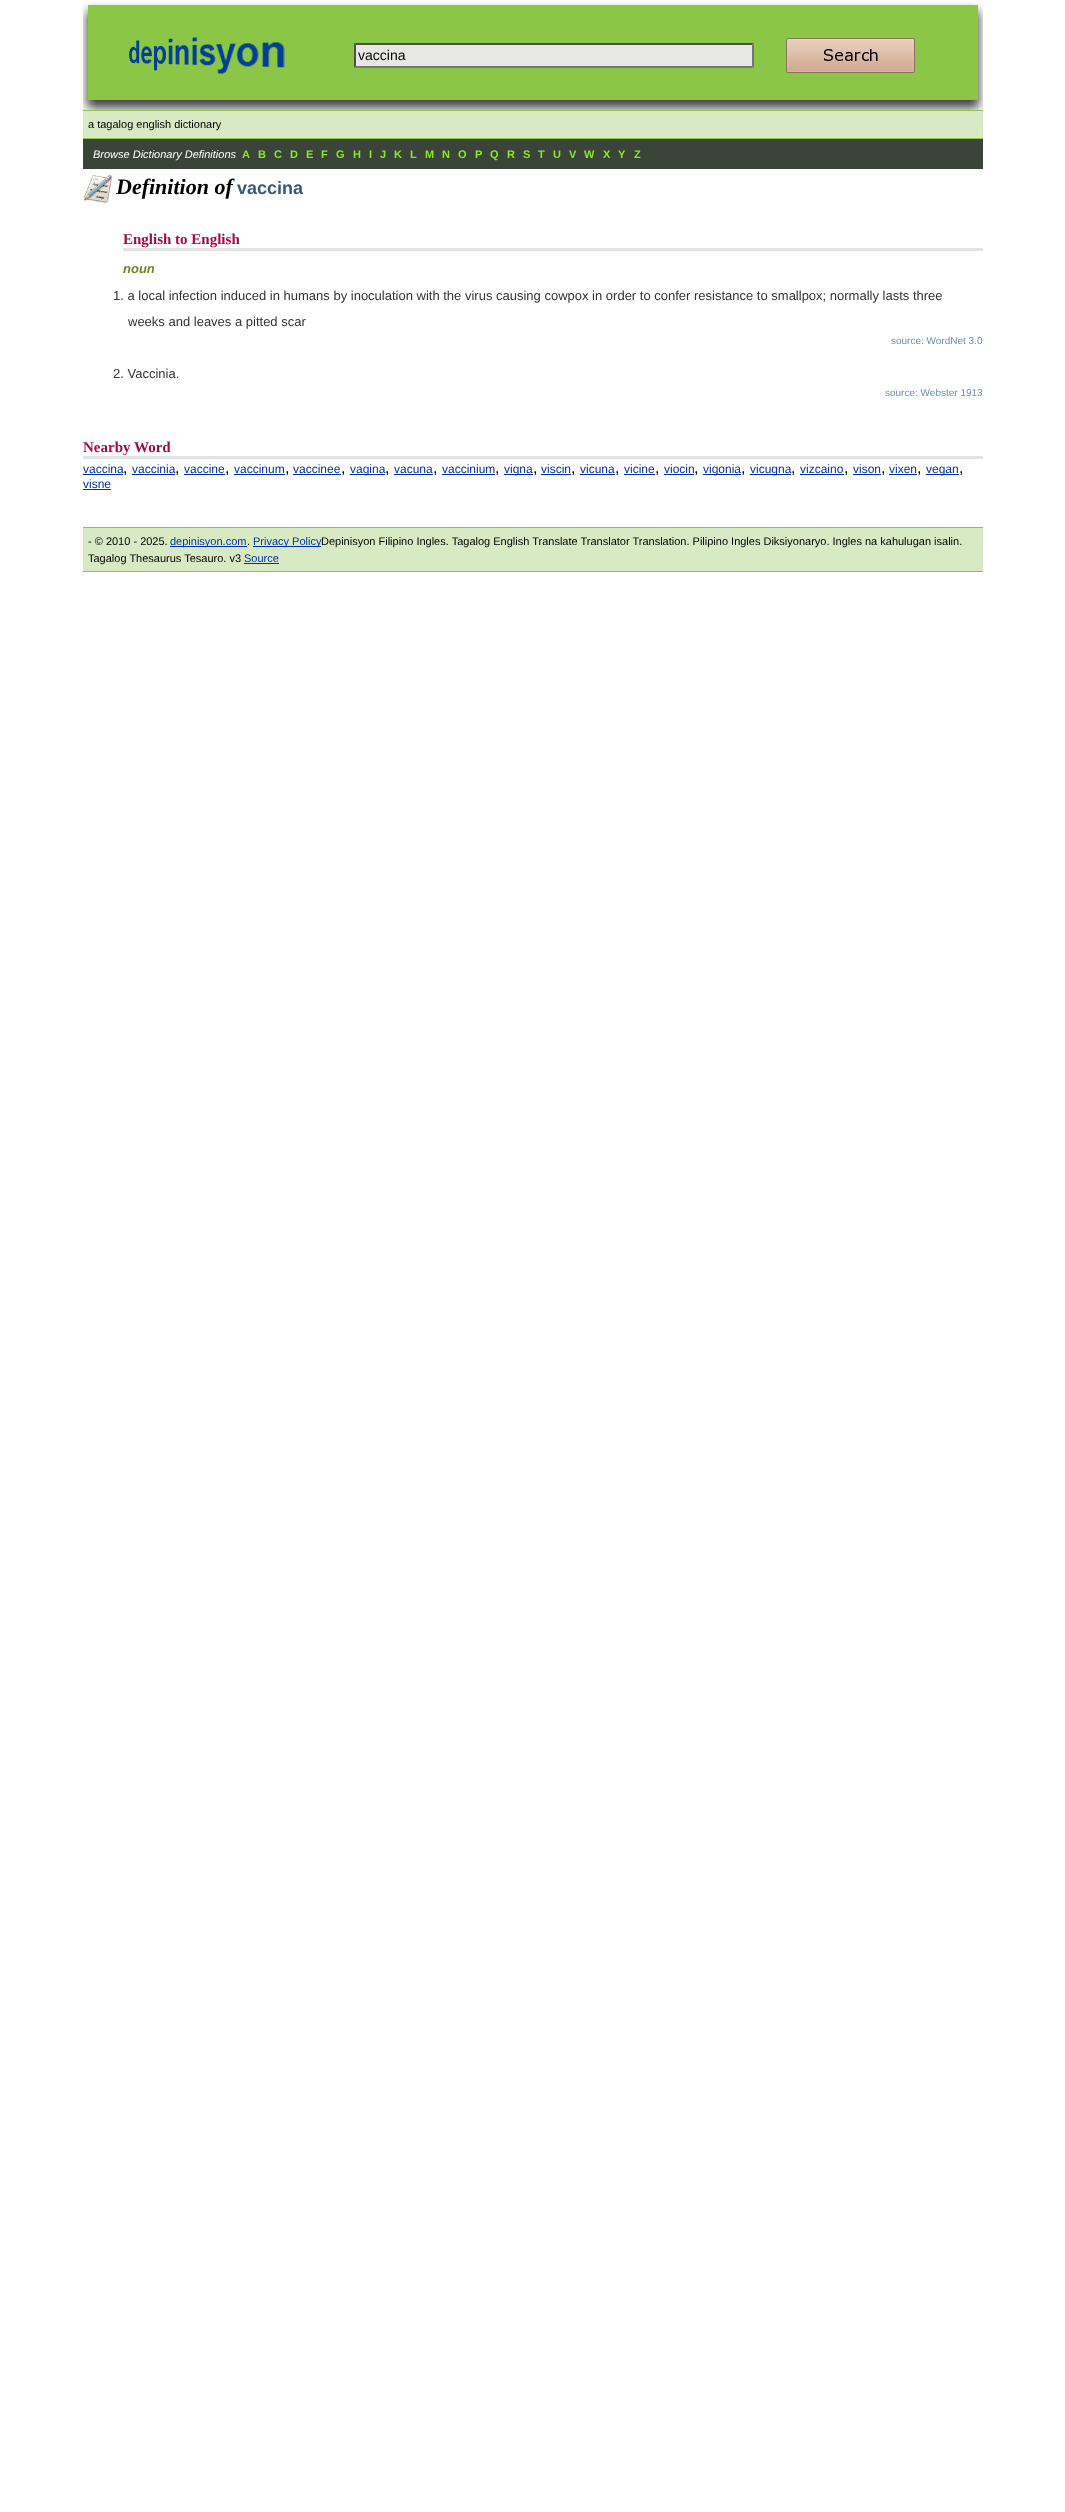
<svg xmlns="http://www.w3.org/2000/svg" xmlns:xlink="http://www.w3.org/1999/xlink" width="1065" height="2512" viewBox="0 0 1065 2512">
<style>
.cls-1{font:14px Liberation Sans;fill:#000000}
.cls-2{font:11px Liberation Sans;fill:#000000}
.cls-3{font:italic 11px Liberation Sans;fill:#ffffff}
.cls-4{font:bold 11px Liberation Sans;fill:#8ae62e}
.cls-5{font:italic bold 22px Liberation Serif;fill:#000000}
.cls-6{font:bold 18px Liberation Sans;fill:#3a597a}
.cls-7{font:bold 15px Liberation Serif;fill:#a50b4a}
.cls-8{font:italic bold 13px Liberation Sans;fill:#698928}
.cls-9{font:13px Liberation Sans;fill:#333333}
.cls-10{font:10px Liberation Sans;fill:#6e8db0}
.cls-11{font:12px Liberation Sans;fill:#0033aa}
.cls-12{font:16px Liberation Sans;fill:#000000}
.cls-13{font:11px Liberation Sans;fill:#0033aa}
</style>
<rect width="100%" height="100%" fill="#ffffff"/>
<image xlink:href="image0.png" x="96" y="2" width="874" height="108"/>
<image xlink:href="image1.png" x="83" y="2" width="13" height="108"/>
<image xlink:href="image2.png" x="129" y="37" width="156" height="37"/>
<rect fill="#e7e7e6" x="354" y="43" width="400" height="25"/>
<path fill="#4f4f4f" d="M354 43H754L752 45H356Z"/>
<path fill="#767676" d="M754 43V68L752 66V45Z"/>
<path fill="#767676" d="M754 68H354L356 66H752Z"/>
<path fill="#4f4f4f" d="M354 68V43L356 45V66Z"/>
<image xlink:href="image3.png" x="786" y="38" width="129" height="35"/>
<image xlink:href="image4.png" x="970" y="2" width="13" height="108"/>
<rect fill="#d8eac3" x="83" y="111" width="900" height="27"/>
<rect fill="#8bc646" x="83" y="110" width="900" height="1"/>
<rect fill="#8bc646" x="83" y="138" width="900" height="1"/>
<rect fill="#3b4438" x="83" y="139" width="900" height="30"/>
<image xlink:href="image5.png" x="83" y="175" width="30" height="29"/>
<rect fill="#e2e3e3" x="123" y="248" width="860" height="3"/>
<rect fill="#e2e3e3" x="83" y="456" width="900" height="3"/>
<rect fill="#0033aa" x="83" y="474" width="40" height="1"/>
<rect fill="#0033aa" x="132" y="474" width="43" height="1"/>
<rect fill="#0033aa" x="184" y="474" width="41" height="1"/>
<rect fill="#0033aa" x="234" y="474" width="51" height="1"/>
<rect fill="#0033aa" x="293" y="474" width="48" height="1"/>
<rect fill="#0033aa" x="350" y="474" width="35" height="1"/>
<rect fill="#0033aa" x="394" y="474" width="39" height="1"/>
<rect fill="#0033aa" x="442" y="474" width="53" height="1"/>
<rect fill="#0033aa" x="504" y="474" width="29" height="1"/>
<rect fill="#0033aa" x="541" y="474" width="30" height="1"/>
<rect fill="#0033aa" x="580" y="474" width="35" height="1"/>
<rect fill="#0033aa" x="624" y="474" width="31" height="1"/>
<rect fill="#0033aa" x="664" y="474" width="30" height="1"/>
<rect fill="#0033aa" x="703" y="474" width="38" height="1"/>
<rect fill="#0033aa" x="750" y="474" width="41" height="1"/>
<rect fill="#0033aa" x="800" y="474" width="44" height="1"/>
<rect fill="#0033aa" x="853" y="474" width="28" height="1"/>
<rect fill="#0033aa" x="889" y="474" width="28" height="1"/>
<rect fill="#0033aa" x="926" y="474" width="33" height="1"/>
<rect fill="#0033aa" x="83" y="489" width="28" height="1"/>
<rect fill="#d8eac3" x="83" y="528" width="900" height="43"/>
<rect fill="#8bc646" x="83" y="527" width="900" height="1"/>
<rect fill="#8bc646" x="83" y="571" width="900" height="1"/>
<rect fill="#0033aa" x="170" y="546" width="77" height="1"/>
<rect fill="#0033aa" x="253" y="546" width="68" height="1"/>
<rect fill="#0033aa" x="244" y="563" width="35" height="1"/>
<text class="cls-1" x="358" y="60">vaccina</text>
<text class="cls-2" x="88" y="128">a tagalog english dictionary</text>
<text class="cls-3" x="93" y="158">Browse Dictionary Definitions</text>
<text class="cls-4" x="242" y="158">A</text>
<text class="cls-4" x="258" y="158">B</text>
<text class="cls-4" x="274" y="158">C</text>
<text class="cls-4" x="290" y="158">D</text>
<text class="cls-4" x="306" y="158">E</text>
<text class="cls-4" x="321" y="158">F</text>
<text class="cls-4" x="336" y="158">G</text>
<text class="cls-4" x="353" y="158">H</text>
<text class="cls-4" x="369" y="158">I</text>
<text class="cls-4" x="380" y="158">J</text>
<text class="cls-4" x="394" y="158">K</text>
<text class="cls-4" x="410" y="158">L</text>
<text class="cls-4" x="425" y="158">M</text>
<text class="cls-4" x="442" y="158">N</text>
<text class="cls-4" x="458" y="158">O</text>
<text class="cls-4" x="475" y="158">P</text>
<text class="cls-4" x="490" y="158">Q</text>
<text class="cls-4" x="507" y="158">R</text>
<text class="cls-4" x="523" y="158">S</text>
<text class="cls-4" x="538" y="158">T</text>
<text class="cls-4" x="553" y="158">U</text>
<text class="cls-4" x="569" y="158">V</text>
<text class="cls-4" x="584" y="158">W</text>
<text class="cls-4" x="603" y="158">X</text>
<text class="cls-4" x="618" y="158">Y</text>
<text class="cls-4" x="634" y="158">Z</text>
<text class="cls-5" x="116" y="194">Definition of</text>
<text class="cls-6" x="237" y="194">vaccina</text>
<text class="cls-7" x="123" y="244">English to English</text>
<text class="cls-8" x="123" y="273">noun</text>
<text class="cls-9" x="113" y="300">1. a local infection induced in humans by inoculation with the virus causing cowpox in order to confer resistance to smallpox; normally lasts three</text>
<text class="cls-9" x="128" y="326">weeks and leaves a pitted scar</text>
<text class="cls-10" x="891" y="344">source: WordNet 3.0</text>
<text class="cls-9" x="113" y="378">2. Vaccinia.</text>
<text class="cls-10" x="885" y="396">source: Webster 1913</text>
<text class="cls-7" x="83" y="452">Nearby Word</text>
<text class="cls-11" x="83" y="473">vaccina</text>
<text class="cls-12" x="123" y="473">,</text>
<text class="cls-11" x="132" y="473">vaccinia</text>
<text class="cls-12" x="175" y="473">,</text>
<text class="cls-11" x="184" y="473">vaccine</text>
<text class="cls-12" x="225" y="473">,</text>
<text class="cls-11" x="234" y="473">vaccinum</text>
<text class="cls-12" x="285" y="473">,</text>
<text class="cls-11" x="293" y="473">vaccinee</text>
<text class="cls-12" x="341" y="473">,</text>
<text class="cls-11" x="350" y="473">vagina</text>
<text class="cls-12" x="385" y="473">,</text>
<text class="cls-11" x="394" y="473">vacuna</text>
<text class="cls-12" x="433" y="473">,</text>
<text class="cls-11" x="442" y="473">vaccinium</text>
<text class="cls-12" x="495" y="473">,</text>
<text class="cls-11" x="504" y="473">vigna</text>
<text class="cls-12" x="533" y="473">,</text>
<text class="cls-11" x="541" y="473">viscin</text>
<text class="cls-12" x="571" y="473">,</text>
<text class="cls-11" x="580" y="473">vicuna</text>
<text class="cls-12" x="615" y="473">,</text>
<text class="cls-11" x="624" y="473">vicine</text>
<text class="cls-12" x="655" y="473">,</text>
<text class="cls-11" x="664" y="473">viocin</text>
<text class="cls-12" x="694" y="473">,</text>
<text class="cls-11" x="703" y="473">vigonia</text>
<text class="cls-12" x="741" y="473">,</text>
<text class="cls-11" x="750" y="473">vicugna</text>
<text class="cls-12" x="791" y="473">,</text>
<text class="cls-11" x="800" y="473">vizcaino</text>
<text class="cls-12" x="844" y="473">,</text>
<text class="cls-11" x="853" y="473">vison</text>
<text class="cls-12" x="881" y="473">,</text>
<text class="cls-11" x="889" y="473">vixen</text>
<text class="cls-12" x="917" y="473">,</text>
<text class="cls-11" x="926" y="473">vegan</text>
<text class="cls-12" x="959" y="473">,</text>
<text class="cls-11" x="83" y="488">visne</text>
<text class="cls-2" x="88" y="545">- © 2010 - 2025.</text>
<text class="cls-13" x="170" y="545">depinisyon.com</text>
<text class="cls-2" x="247" y="545">.</text>
<text class="cls-13" x="253" y="545">Privacy Policy</text>
<text class="cls-2" x="321" y="545">Depinisyon Filipino Ingles. Tagalog English Translate Translator Translation. Pilipino Ingles Diksiyonaryo. Ingles na kahulugan isalin.</text>
<text class="cls-2" x="88" y="562">Tagalog Thesaurus Tesauro. v3</text>
<text class="cls-13" x="244" y="562">Source</text>
</svg>
